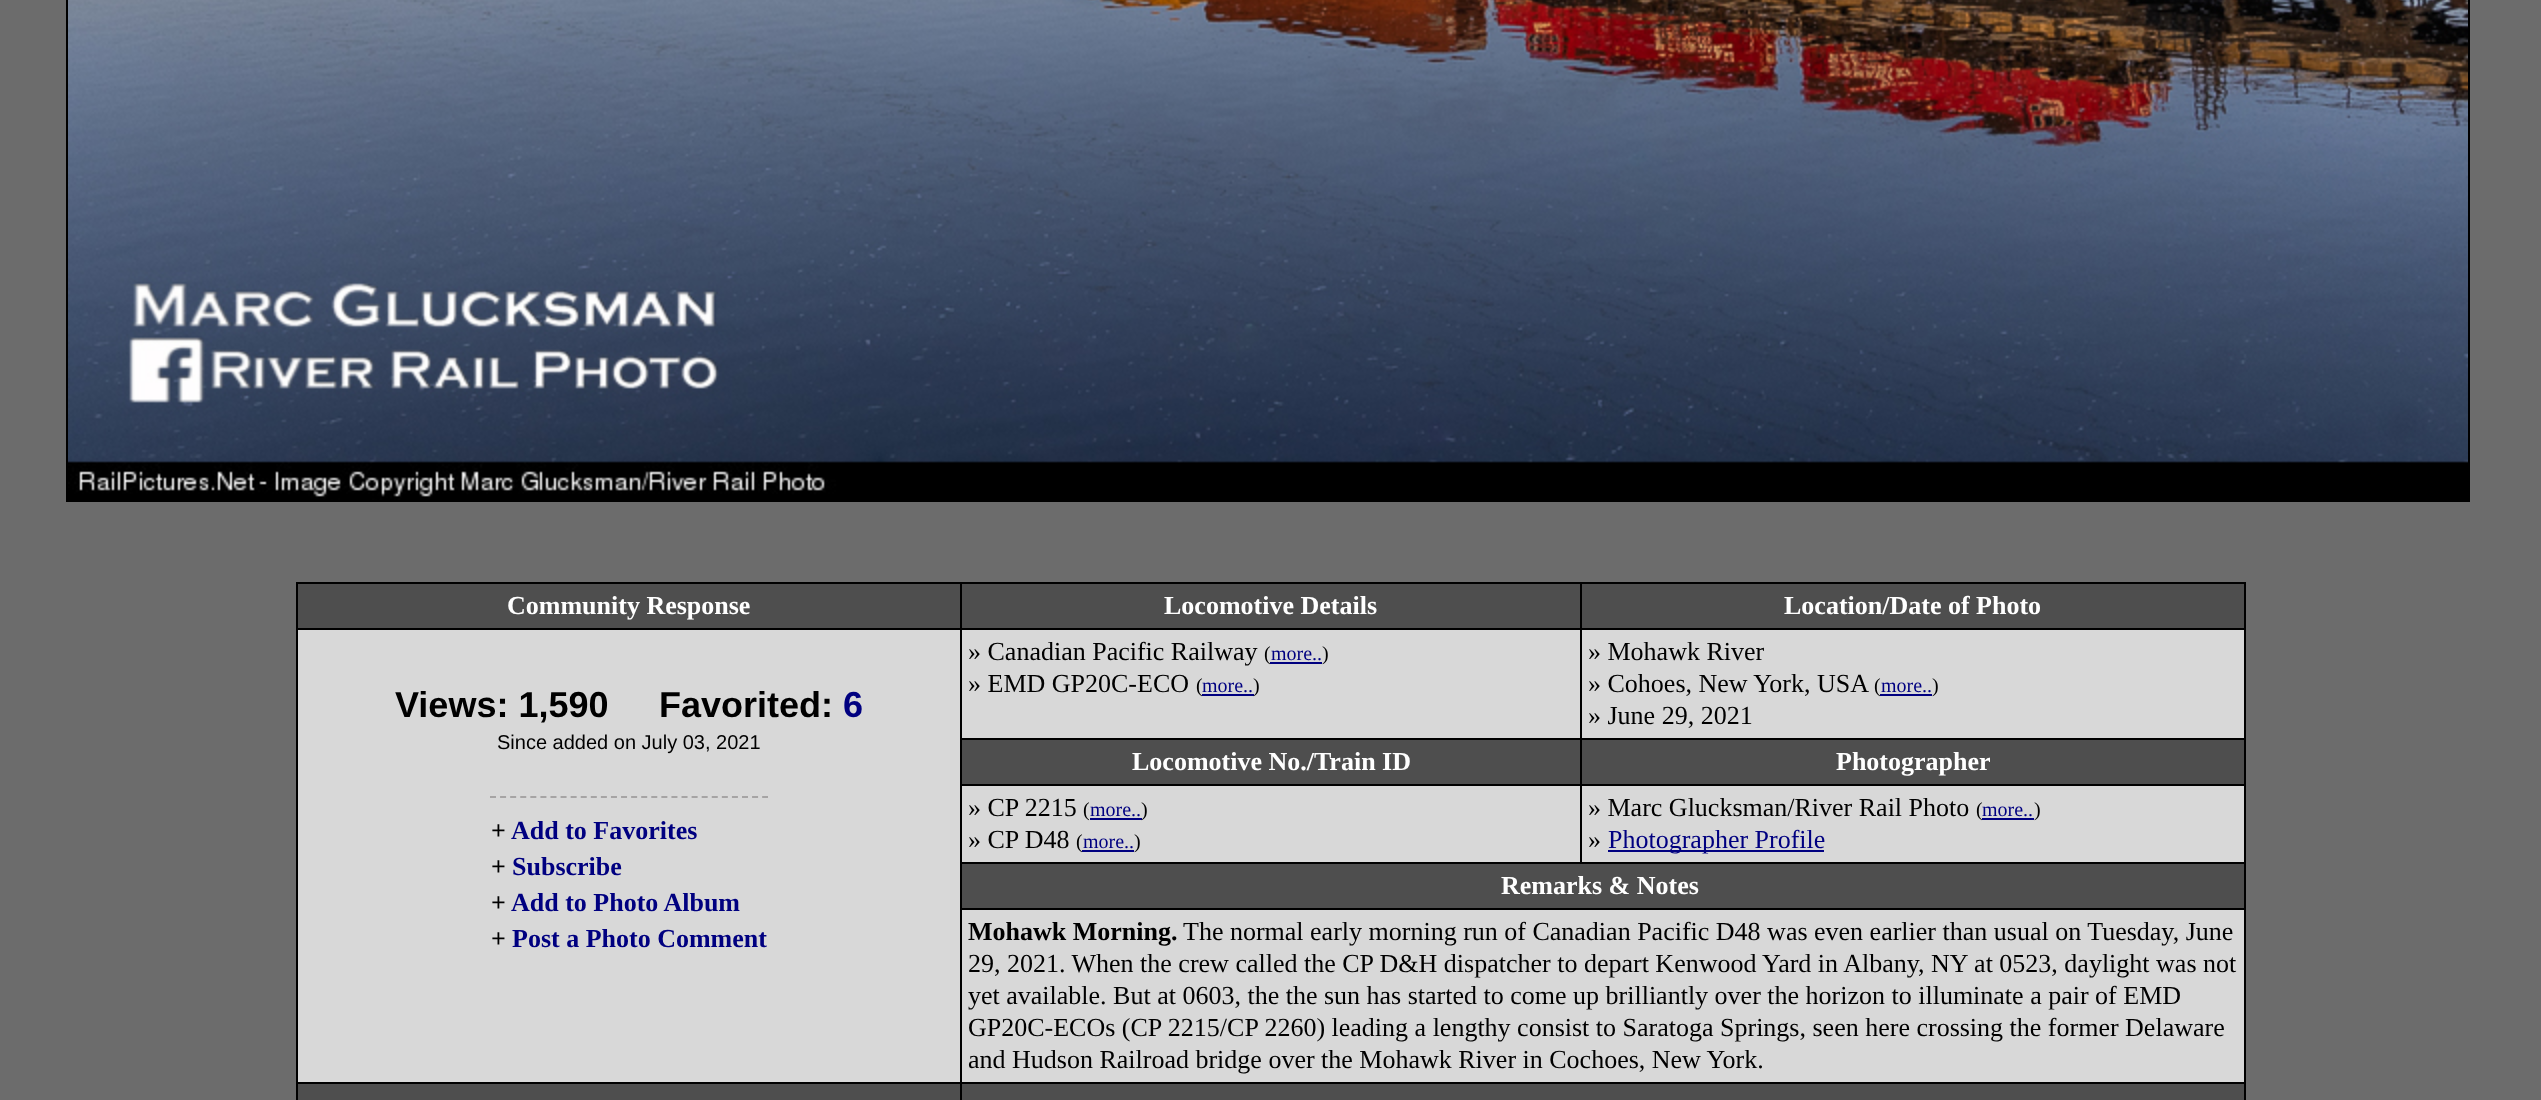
<svg xmlns="http://www.w3.org/2000/svg" xmlns:xlink="http://www.w3.org/1999/xlink" width="2541" height="1100" viewBox="0 0 2541 1100">
<style>
.cls-1{font:bold 26px Liberation Serif;fill:#ffffff}
.cls-2{font:bold 36px Liberation Sans;fill:#000000}
.cls-3{font:bold 36px Liberation Sans;fill:#000080}
.cls-4{font:20px Liberation Sans;fill:#000000}
.cls-5{font:bold 26px Liberation Serif;fill:#000000}
.cls-6{font:bold 26px Liberation Serif;fill:#000080}
.cls-7{font:26px Liberation Serif;fill:#000000}
.cls-8{font:20px Liberation Serif;fill:#000000}
.cls-9{font:20px Liberation Serif;fill:#000080}
.cls-10{font:26px Liberation Serif;fill:#000080}
</style>
<rect width="100%" height="100%" fill="#6c6c6c"/>
<rect fill="none" stroke="#000000" stroke-width="2" x="67" y="-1" width="2402" height="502"/>
<image xlink:href="image0.png" x="68" y="0" width="2400" height="500"/>
<rect fill="#000000" x="296" y="582" width="1950" height="518"/>
<rect fill="#4e4e4e" x="298" y="584" width="662" height="44"/>
<rect fill="#4e4e4e" x="962" y="584" width="618" height="44"/>
<rect fill="#4e4e4e" x="1582" y="584" width="662" height="44"/>
<rect fill="#d8d8d8" x="298" y="630" width="662" height="452"/>
<path fill="none" stroke="#a6a4a4" stroke-width="2" stroke-dasharray="6 4.08" d="M490 797H768"/>
<rect fill="#d8d8d8" x="962" y="630" width="618" height="108"/>
<rect fill="#000080" x="1202" y="694" width="52" height="2"/>
<rect fill="#d8d8d8" x="1582" y="630" width="662" height="108"/>
<rect fill="#4e4e4e" x="962" y="740" width="618" height="44"/>
<rect fill="#4e4e4e" x="1582" y="740" width="662" height="44"/>
<rect fill="#d8d8d8" x="962" y="786" width="618" height="76"/>
<rect fill="#000080" x="1090" y="818" width="52" height="2"/>
<rect fill="#d8d8d8" x="1582" y="786" width="662" height="76"/>
<rect fill="#000080" x="1982" y="818" width="52" height="2"/>
<rect fill="#000080" x="1608" y="850" width="216" height="2"/>
<rect fill="#4e4e4e" x="962" y="864" width="1282" height="44"/>
<rect fill="#d8d8d8" x="962" y="910" width="1282" height="172"/>
<rect fill="#4e4e4e" x="298" y="1084" width="662" height="16"/>
<rect fill="#4e4e4e" x="962" y="1084" width="1282" height="16"/>
<text class="cls-1" x="507" y="614">Community Response</text>
<text class="cls-1" x="1164" y="614">Locomotive Details</text>
<text class="cls-1" x="1784" y="614">Location/Date of Photo</text>
<text class="cls-2" x="395" y="717">Views: 1,590</text>
<text class="cls-2" x="659" y="717">Favorited:</text>
<text class="cls-3" x="843" y="717">6</text>
<text class="cls-4" x="497" y="749">Since added on July 03, 2021</text>
<text class="cls-5" x="491" y="839">+</text>
<text class="cls-6" x="511" y="839">Add to Favorites</text>
<text class="cls-5" x="491" y="875">+</text>
<text class="cls-6" x="512" y="875">Subscribe</text>
<text class="cls-5" x="491" y="911">+</text>
<text class="cls-6" x="511" y="911">Add to Photo Album</text>
<text class="cls-5" x="491" y="947">+</text>
<text class="cls-6" x="512" y="947">Post a Photo Comment</text>
<text class="cls-7" x="968" y="660">» Canadian Pacific Railway</text>
<text class="cls-8" x="1264" y="660">(</text>
<rect fill="#000080" x="1270" y="662" width="52" height="2"/>
<text class="cls-9" x="1271" y="660">more..</text>
<text class="cls-8" x="1322" y="660">)</text>
<text class="cls-7" x="968" y="692">» EMD GP20C-ECO</text>
<text class="cls-8" x="1196" y="692">(</text>
<text class="cls-9" x="1202" y="692">more..</text>
<text class="cls-8" x="1253" y="692">)</text>
<text class="cls-7"><tspan x="1588" y="660">» Mohawk River</tspan><tspan x="1588" y="692">» Cohoes, New York, USA</tspan></text>
<text class="cls-8" x="1874" y="692">(</text>
<rect fill="#000080" x="1880" y="694" width="52" height="2"/>
<text class="cls-9" x="1881" y="692">more..</text>
<text class="cls-8" x="1932" y="692">)</text>
<text class="cls-7" x="1588" y="724">» June 29, 2021</text>
<text class="cls-1" x="1132" y="770">Locomotive No./Train ID</text>
<text class="cls-1" x="1836" y="770">Photographer</text>
<text class="cls-7" x="968" y="816">» CP 2215</text>
<text class="cls-8" x="1083" y="816">(</text>
<text class="cls-9" x="1090" y="816">more..</text>
<text class="cls-8" x="1141" y="816">)</text>
<text class="cls-7" x="968" y="848">» CP D48</text>
<text class="cls-8" x="1076" y="848">(</text>
<rect fill="#000080" x="1082" y="850" width="52" height="2"/>
<text class="cls-9" x="1083" y="848">more..</text>
<text class="cls-8" x="1134" y="848">)</text>
<text class="cls-7" x="1588" y="816">» Marc Glucksman/River Rail Photo</text>
<text class="cls-8" x="1976" y="816">(</text>
<text class="cls-9" x="1982" y="816">more..</text>
<text class="cls-8" x="2034" y="816">)</text>
<text class="cls-7" x="1588" y="848">»</text>
<text class="cls-10" x="1608" y="848">Photographer Profile</text>
<text class="cls-1" x="1501" y="894">Remarks &amp; Notes</text>
<text class="cls-5" x="968" y="940">Mohawk Morning.</text>
<text class="cls-7" x="1183" y="940">The normal early morning run of Canadian Pacific D48 was even earlier than usual on Tuesday, June</text>
<text class="cls-7"><tspan x="968" y="972">29, 2021. When the crew called the CP D&amp;H dispatcher to depart Kenwood Yard in Albany, NY at 0523, daylight was not</tspan><tspan x="968" y="1004">yet available. But at 0603, the the sun has started to come up brilliantly over the horizon to illuminate a pair of EMD</tspan><tspan x="968" y="1036">GP20C-ECOs (CP 2215/CP 2260) leading a lengthy consist to Saratoga Springs, seen here crossing the former Delaware</tspan><tspan x="968" y="1068">and Hudson Railroad bridge over the Mohawk River in Cochoes, New York.</tspan></text>
</svg>
